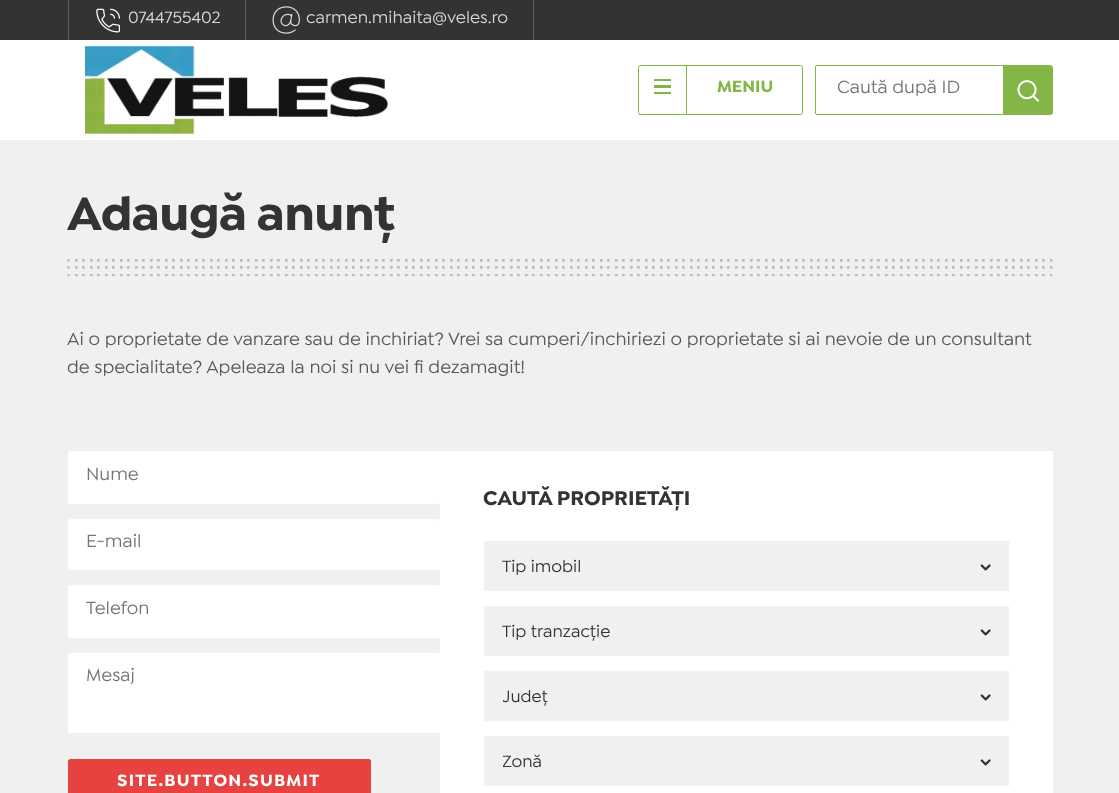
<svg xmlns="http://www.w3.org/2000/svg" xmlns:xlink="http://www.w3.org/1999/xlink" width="1119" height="793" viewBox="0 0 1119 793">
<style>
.cls-1{font:500 17.5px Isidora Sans;fill:#d6d6d6}
.cls-2{font:bold 17.5px Isidora Sans;fill:#83b547}
.cls-3{font:500 18.75px Isidora Sans;fill:#757575}
.cls-4{font:bold 50px Isidora Sans;letter-spacing:-0.6px;fill:#333333}
.cls-5{font:500 18.75px Isidora Sans;fill:#595959}
.cls-6{font:bold 17.5px Isidora Sans;letter-spacing:1.25px;fill:#ffffff}
.cls-7{font:bold 21.25px Isidora Sans;fill:#333333}
.cls-8{font:500 17.5px Isidora Sans;fill:#333333}
</style>
<defs>
<clipPath id="clip1"><rect x="503" y="686" width="468" height="22"/></clipPath>
<clipPath id="clip2"><rect x="503" y="751" width="468" height="22"/></clipPath>
</defs>
<rect width="100%" height="100%" fill="#ffffff"/>
<rect fill="#333333" x="0" y="0" width="1119" height="40"/>
<rect fill="#5e5e5e" x="68" y="0" width="1" height="40"/>
<rect fill="#5e5e5e" x="245" y="0" width="1" height="40"/>
<image xlink:href="image0.png" x="96" y="8" width="24" height="25"/>
<rect fill="#5e5e5e" x="533" y="0" width="1" height="40"/>
<image xlink:href="image1.png" x="272" y="6" width="28" height="28"/>
<image xlink:href="image2.png" x="85" y="46" width="303" height="88"/>
<rect fill="none" stroke="#83b547" x="638.5" y="65.5" width="164" height="49" rx="2"/>
<rect fill="#83b547" x="686" y="66" width="1" height="48"/>
<rect fill="#83b547" x="654" y="79" width="17" height="2"/>
<rect fill="#83b547" x="654" y="85" width="17" height="3"/>
<rect fill="#83b547" x="654" y="92" width="17" height="2"/>
<rect fill="#83b547" x="816" y="65" width="187" height="1"/>
<rect fill="#83b547" x="816" y="114" width="187" height="1"/>
<rect fill="#83b547" x="815" y="66" width="1" height="48"/>
<path fill="#83b547" stroke="#83b547" d="M1003.5 65.5H1050.5C1051.5 65.5 1052.5 66.5 1052.5 67.5V112.5C1052.5 113.5 1051.5 114.5 1050.5 114.5H1003.5Z"/>
<image xlink:href="image3.png" x="1017" y="80" width="22" height="22"/>
<rect fill="#f0f0f0" x="0" y="140" width="1119" height="653"/>
<image xlink:href="image4.png" x="67" y="259" width="986" height="18"/>
<rect fill="#ffffff" x="68" y="451" width="372" height="53" rx="2.5"/>
<rect fill="#ffffff" x="68" y="519" width="372" height="51" rx="2.5"/>
<rect fill="#ffffff" x="68" y="585" width="372" height="53" rx="2.5"/>
<rect fill="#ffffff" x="68" y="653" width="372" height="80" rx="2.5"/>
<rect fill="#e54240" x="68" y="759" width="303" height="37" rx="2.5"/>
<rect fill="#ffffff" x="440" y="451" width="613" height="342"/>
<rect fill="#f0f0f0" x="484" y="541" width="525" height="50"/>
<image xlink:href="image5.png" x="980" y="564" width="11" height="7"/>
<rect fill="#f0f0f0" x="484" y="606" width="525" height="50"/>
<image xlink:href="image5.png" x="980" y="629" width="11" height="7"/>
<rect fill="#f0f0f0" x="484" y="671" width="525" height="50"/>
<image xlink:href="image5.png" x="980" y="694" width="11" height="7"/>
<rect fill="#f0f0f0" x="484" y="736" width="525" height="50"/>
<image xlink:href="image5.png" x="980" y="759" width="11" height="7"/>
<text class="cls-1" x="128" y="23">0744755402</text>
<text class="cls-1" x="306" y="23">carmen.mihaita@veles.ro</text>
<text class="cls-2" x="717" y="92">MENIU</text>
<text class="cls-3" x="837" y="93">Caută după ID</text>
<text class="cls-4" x="67" y="230">Adaugă anunț</text>
<text class="cls-5"><tspan x="67" y="345">Ai o proprietate de vanzare sau de inchiriat? Vrei sa cumperi/inchiriezi o proprietate si ai nevoie de un consultant</tspan><tspan x="67" y="373">de specialitate? Apeleaza la noi si nu vei fi dezamagit!</tspan></text>
<text class="cls-3" x="86" y="480">Nume</text>
<text class="cls-3" x="86" y="547">E-mail</text>
<text class="cls-3" x="86" y="614">Telefon</text>
<text class="cls-3" x="86" y="681">Mesaj</text>
<text class="cls-6" x="117" y="786">SITE.BUTTON.SUBMIT</text>
<text class="cls-7" x="483" y="505">CAUTĂ PROPRIETĂȚI</text>
<text class="cls-8" x="502" y="572">Tip imobil</text>
<text class="cls-8" x="502" y="637">Tip tranzacție</text>
<g clip-path="url(#clip1)">
<text class="cls-8" x="502" y="702">Județ</text>
</g>
<g clip-path="url(#clip2)">
<text class="cls-8" x="502" y="767">Zonă</text>
</g>
</svg>
